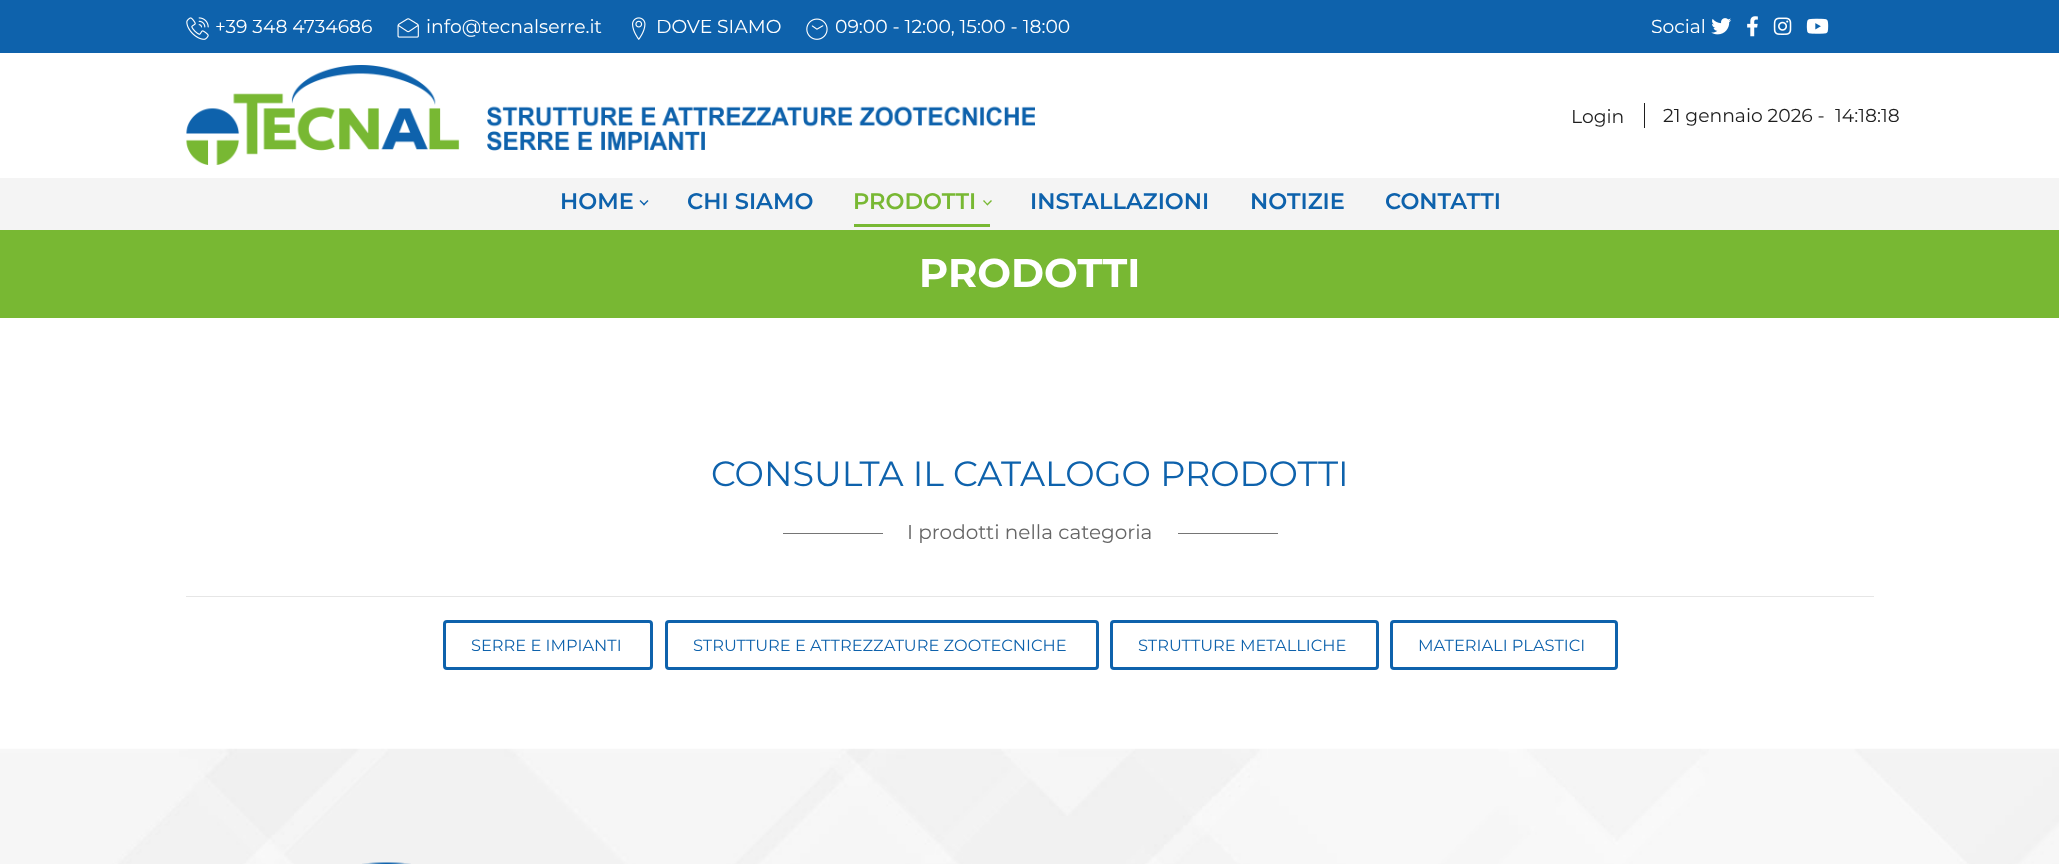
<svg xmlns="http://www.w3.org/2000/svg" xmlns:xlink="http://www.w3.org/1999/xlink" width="2059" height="864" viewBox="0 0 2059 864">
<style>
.cls-1{font:18.75px Montserrat;fill:#ffffff}
.cls-2{font:18.75px Montserrat;fill:#1e1e1e}
.cls-3{font:600 22.5px Montserrat;fill:#0e62ac}
.cls-4{font:600 22.5px Montserrat;fill:#78b833}
.cls-5{font:bold 40px Montserrat;fill:#ffffff}
.cls-6{font:35px Montserrat;fill:#0e62ac}
.cls-7{font:20px Montserrat;fill:#666666}
.cls-8{font:16.25px Montserrat;fill:#0e62ac}
</style>
<rect width="100%" height="100%" fill="#ffffff"/>
<rect fill="#78b833" x="0" y="230" width="2059" height="88"/>
<rect fill="#0e62ac" x="0" y="0" width="2059" height="53"/>
<image xlink:href="image0.png" x="186" y="17" width="23" height="23"/>
<image xlink:href="image1.png" x="397" y="18" width="22" height="20"/>
<image xlink:href="image2.png" x="632" y="17" width="14" height="23"/>
<image xlink:href="image3.png" x="806" y="18" width="22" height="22"/>
<image xlink:href="image4.png" x="1711" y="18" width="21" height="17"/>
<image xlink:href="image5.png" x="1747" y="16" width="11" height="21"/>
<image xlink:href="image6.png" x="1773" y="17" width="19" height="18"/>
<image xlink:href="image7.png" x="1806" y="18" width="23" height="16"/>
<image xlink:href="image8.png" x="186" y="65" width="849" height="100"/>
<rect fill="#1e1e1e" x="1644" y="103" width="1" height="25"/>
<rect fill="#f4f4f4" x="0" y="178" width="2059" height="52"/>
<path fill="#0e62ac" d="M647.5 200L648.5 201L644 205.5L643 204.5Z"/>
<path fill="#0e62ac" d="M640.5 200L645 204.5L644 205.5L639.5 201Z"/>
<path fill="#78b833" d="M991 200L992 201L987.5 205.5L986.5 204.5Z"/>
<path fill="#78b833" d="M984 200L988 204.5L987.5 205.5L983 201Z"/>
<rect fill="#78b833" x="854" y="224" width="136" height="3"/>
<rect fill="#757575" x="783" y="533" width="100" height="1"/>
<rect fill="#757575" x="1178" y="533" width="100" height="1"/>
<rect fill="#e6e6e6" x="186" y="596" width="1688" height="1"/>
<rect fill="none" stroke="#0e62ac" stroke-width="3" x="444.5" y="621.5" width="207" height="47" rx="2.5"/>
<rect fill="none" stroke="#0e62ac" stroke-width="3" x="666.5" y="621.5" width="431" height="47" rx="2.5"/>
<rect fill="none" stroke="#0e62ac" stroke-width="3" x="1111.5" y="621.5" width="266" height="47" rx="2.5"/>
<rect fill="none" stroke="#0e62ac" stroke-width="3" x="1391.5" y="621.5" width="225" height="47" rx="2.5"/>
<image xlink:href="image9.png" x="0" y="748" width="2059" height="116"/>
<image xlink:href="image10.png" x="362" y="862" width="49" height="2"/>
<text class="cls-1" x="215" y="33">+39 348 4734686</text>
<text class="cls-1" x="426" y="33">info@tecnalserre.it</text>
<text class="cls-1" x="656" y="33">DOVE SIAMO</text>
<text class="cls-1" x="835" y="33">09:00 - 12:00, 15:00 - 18:00</text>
<text class="cls-1" x="1651" y="33">Social</text>
<text class="cls-2" x="1571" y="123">Login</text>
<text class="cls-2" x="1663" y="122">21 gennaio 2026 -</text>
<text class="cls-2" x="1835" y="122">14:18:18</text>
<text class="cls-3" x="560" y="209">HOME</text>
<text class="cls-3" x="687" y="209">CHI SIAMO</text>
<text class="cls-4" x="853" y="209">PRODOTTI</text>
<text class="cls-3" x="1030" y="209">INSTALLAZIONI</text>
<text class="cls-3" x="1250" y="209">NOTIZIE</text>
<text class="cls-3" x="1385" y="209">CONTATTI</text>
<text class="cls-5" x="919" y="287">PRODOTTI</text>
<text class="cls-6" x="711" y="486">CONSULTA IL CATALOGO PRODOTTI</text>
<text class="cls-7" x="907" y="539">I prodotti nella categoria</text>
<text class="cls-8" x="471" y="651">SERRE E IMPIANTI</text>
<text class="cls-8" x="693" y="651">STRUTTURE E ATTREZZATURE ZOOTECNICHE</text>
<text class="cls-8" x="1138" y="651">STRUTTURE METALLICHE</text>
<text class="cls-8" x="1418" y="651">MATERIALI PLASTICI</text>
</svg>
